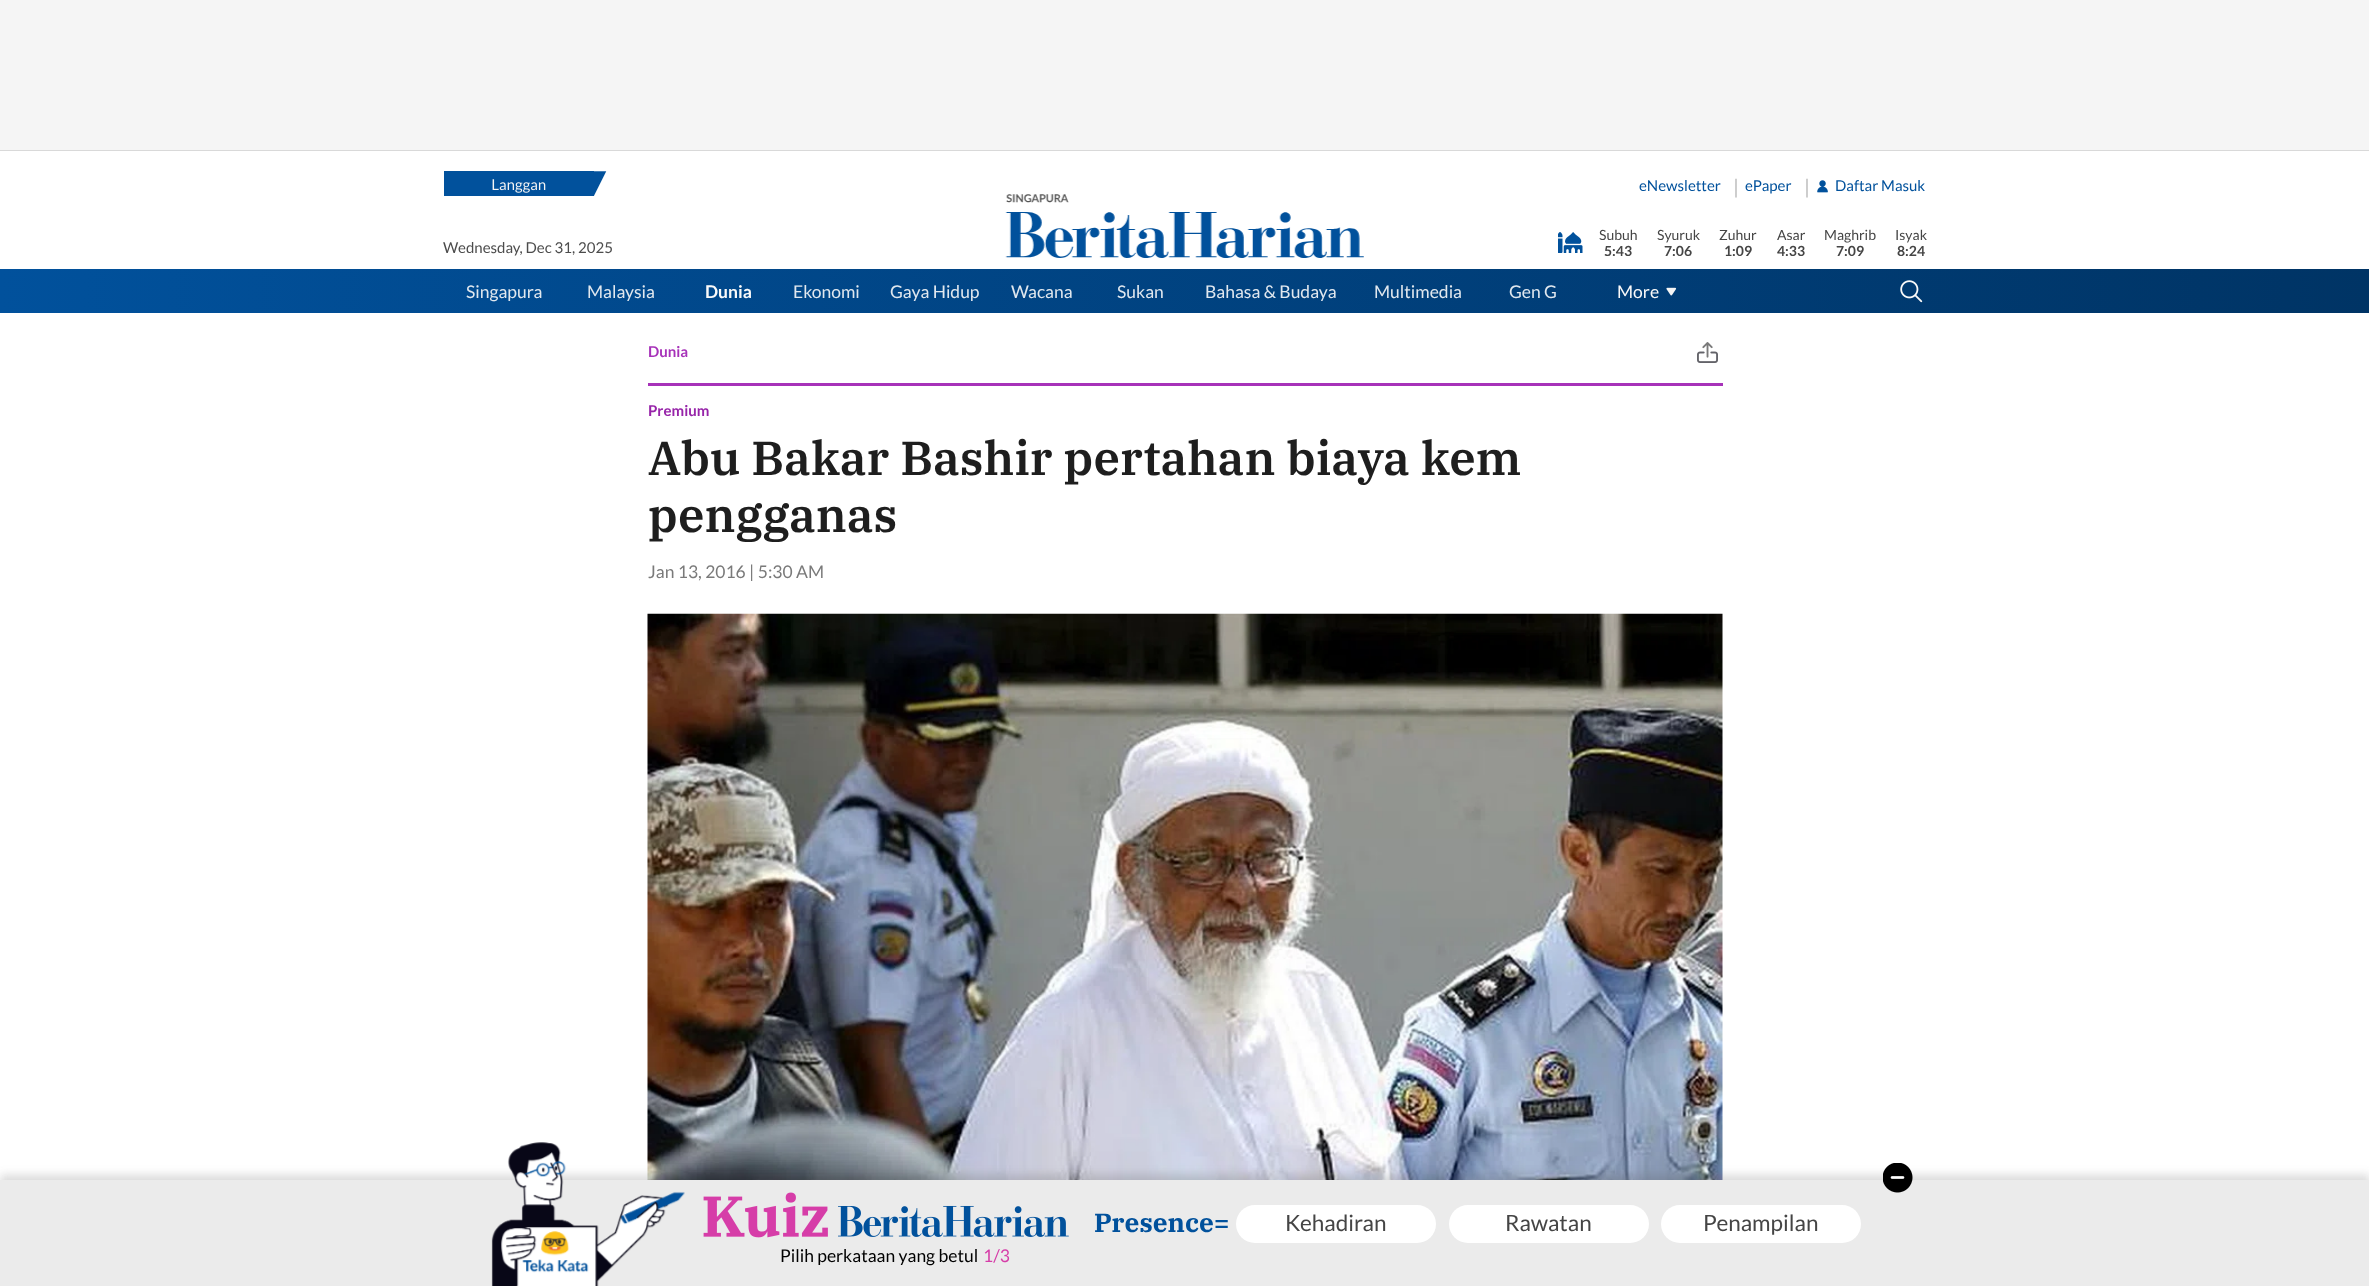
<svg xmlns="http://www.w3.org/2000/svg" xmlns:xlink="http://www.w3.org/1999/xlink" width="2369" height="1286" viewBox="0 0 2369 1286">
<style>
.cls-1{font:15px Lato;fill:#4c4c4c}
.cls-2{font:15px Lato;fill:#01519c}
.cls-3{font:20px Lato;fill:#bbbbbb}
.cls-4{font:14px Lato;fill:#454545}
.cls-5{font:bold 14px Lato;fill:#454545}
.cls-6{font:17.5px Lato;fill:#e1e8ef}
.cls-7{font:bold 17.5px Lato;fill:#fafafa}
.cls-8{font:17.5px Lato;fill:#fafafa}
.cls-9{font:bold 15px Lato;fill:#a732b9}
.cls-10{font:bold 15px Lato;fill:#9724a9}
.cls-11{font:600 47.5px IBM Plex Serif;fill:#1e1e1e}
.cls-12{font:17.5px Lato;fill:#7a7a7a}
.cls-13{font:bold 26.25px IBM Plex Serif;fill:#01519c}
.cls-14{font:22.5px Lato;fill:#454545}
.cls-15{font:17.5px Lato;fill:#000000}
.cls-16{font:17.5px Lato;fill:#d63da8}
</style>
<defs>
<linearGradient id="g1" gradientUnits="userSpaceOnUse" x1="0" y1="291" x2="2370" y2="291"><stop offset="0" stop-color="#01519c"/><stop offset="1" stop-color="#003465"/></linearGradient>
</defs>
<rect width="100%" height="100%" fill="#ffffff"/>
<rect fill="#f5f5f5" x="0" y="0" width="2369" height="150"/>
<rect fill="#d9d9d9" x="0" y="150" width="2369" height="1"/>
<image xlink:href="image0.png" x="444" y="171" width="163" height="25"/>
<image xlink:href="image1.png" x="1005" y="194" width="359" height="64"/>
<image xlink:href="image2.png" x="1817" y="180" width="11" height="13"/>
<image xlink:href="image3.png" x="1558" y="232" width="25" height="21"/>
<rect fill="url(#g1)" x="0" y="269" width="2369" height="44"/>
<image xlink:href="image4.png" x="1666" y="287" width="11" height="9"/>
<image xlink:href="image5.png" x="1900" y="280" width="23" height="23"/>
<rect fill="#a732b9" x="648" y="383" width="1075" height="3"/>
<image xlink:href="image6.png" x="1697" y="342" width="21" height="21"/>
<image xlink:href="image7.png" x="647" y="613" width="1076" height="567"/>
<rect fill="#454545" fill-opacity="0.2" filter="blur(5px)" x="0" y="1175" width="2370" height="106"/>
<rect fill="#ebebeb" x="0" y="1180" width="2369" height="106"/>
<image xlink:href="image8.png" x="491" y="1142" width="194" height="144"/>
<image xlink:href="image9.png" x="1883" y="1163" width="30" height="30"/>
<rect fill="#ffffff" x="1236" y="1205" width="200" height="38" rx="19"/>
<rect fill="#ffffff" x="1449" y="1205" width="200" height="38" rx="19"/>
<rect fill="#ffffff" x="1661" y="1205" width="200" height="38" rx="19"/>
<image xlink:href="image10.png" x="703" y="1192" width="366" height="46"/>
<text class="cls-1" x="443" y="253">Wednesday, Dec 31, 2025</text>
<text class="cls-2" x="1639" y="191">eNewsletter</text>
<text class="cls-3" x="1733" y="194">|</text>
<text class="cls-2" x="1745" y="191">ePaper</text>
<text class="cls-3" x="1804" y="194">|</text>
<text class="cls-2" x="1835" y="191">Daftar Masuk</text>
<text class="cls-4" x="1599" y="240">Subuh</text>
<text class="cls-5" x="1604" y="256">5:43</text>
<text class="cls-4" x="1657" y="240">Syuruk</text>
<text class="cls-5" x="1664" y="256">7:06</text>
<text class="cls-4" x="1719" y="240">Zuhur</text>
<text class="cls-5" x="1724" y="256">1:09</text>
<text class="cls-4" x="1777" y="240">Asar</text>
<text class="cls-5" x="1777" y="256">4:33</text>
<text class="cls-4" x="1824" y="240">Maghrib</text>
<text class="cls-5" x="1836" y="256">7:09</text>
<text class="cls-4" x="1895" y="240">Isyak</text>
<text class="cls-5" x="1897" y="256">8:24</text>
<text class="cls-6" x="466" y="298">Singapura</text>
<text class="cls-6" x="587" y="298">Malaysia</text>
<text class="cls-7" x="705" y="298">Dunia</text>
<text class="cls-6" x="793" y="298">Ekonomi</text>
<text class="cls-6" x="890" y="298">Gaya Hidup</text>
<text class="cls-6" x="1011" y="298">Wacana</text>
<text class="cls-6" x="1117" y="298">Sukan</text>
<text class="cls-6" x="1205" y="298">Bahasa &amp; Budaya</text>
<text class="cls-6" x="1374" y="298">Multimedia</text>
<text class="cls-6" x="1509" y="298">Gen G</text>
<text class="cls-8" x="1617" y="298">More</text>
<text class="cls-9" x="648" y="357">Dunia</text>
<text class="cls-10" x="648" y="416">Premium</text>
<text class="cls-11"><tspan x="648" y="475">Abu Bakar Bashir pertahan biaya kem</tspan><tspan x="648" y="532">pengganas</tspan></text>
<text class="cls-12" x="648" y="578">Jan 13, 2016 | 5:30 AM</text>
<text class="cls-13" x="1094" y="1232">Presence=</text>
<text class="cls-14" x="1285" y="1231">Kehadiran</text>
<text class="cls-14" x="1505" y="1231">Rawatan</text>
<text class="cls-14" x="1703" y="1231">Penampilan</text>
<text class="cls-15" x="780" y="1262">Pilih perkataan yang betul</text>
<text class="cls-16" x="983" y="1262">1/3</text>
</svg>
